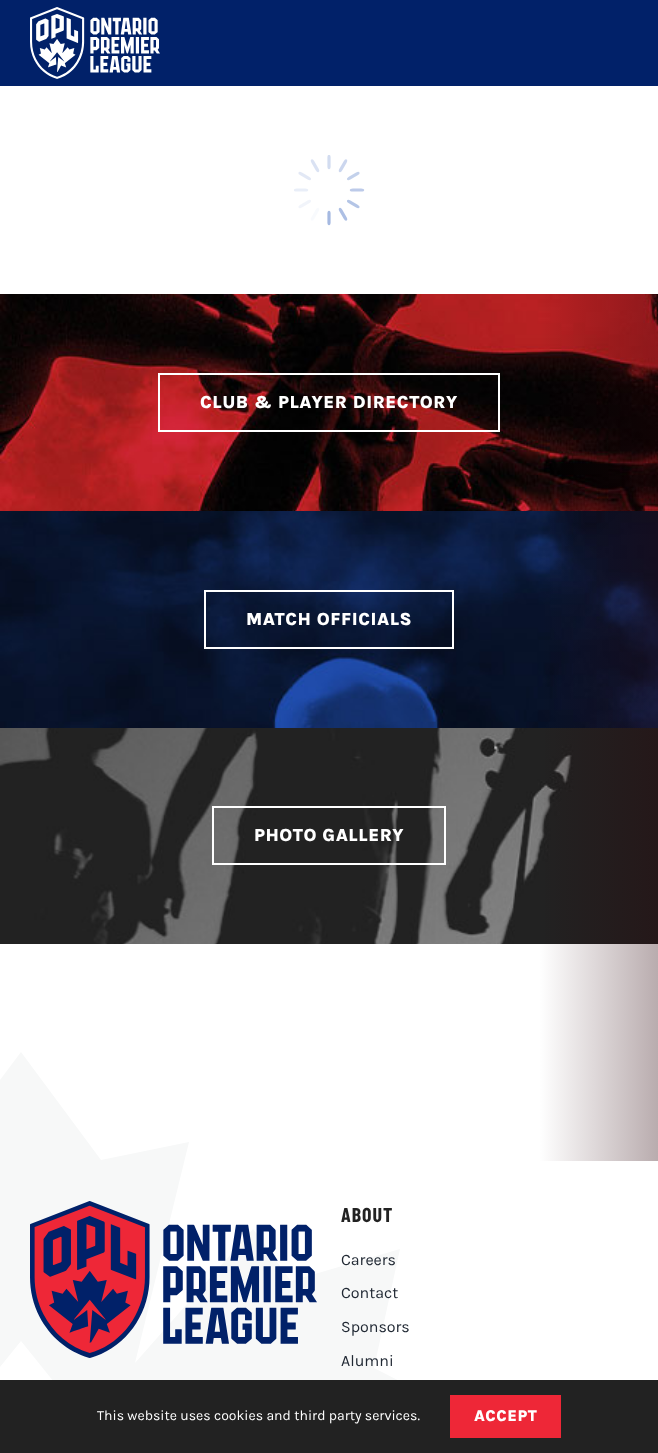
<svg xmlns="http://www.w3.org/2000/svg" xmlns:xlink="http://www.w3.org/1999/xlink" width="658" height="1453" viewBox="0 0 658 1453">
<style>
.cls-1{font:800 18px Karla;letter-spacing:0.5px;fill:#ffffff}
.cls-2{font:bold 20px Barlow Condensed;letter-spacing:1px;fill:#222222}
.cls-3{font:16px Karla;fill:#212934}
.cls-4{font:14px Karla;fill:#ffffff}
.cls-5{font:800 16px Karla;letter-spacing:0.5px;fill:#ffffff}
</style>
<defs>
<linearGradient id="g1" gradientUnits="userSpaceOnUse" x1="658" y1="1053" x2="0" y2="1053"><stop offset="0" stop-color="#b9acae"/><stop offset="0.18" stop-color="#ffffff"/></linearGradient>
</defs>
<rect width="100%" height="100%" fill="#ffffff"/>
<rect fill="#012169" x="0" y="0" width="658" height="86"/>
<image xlink:href="image0.png" x="30" y="7" width="130" height="72"/>
<image xlink:href="image1.png" x="294" y="155" width="71" height="71"/>
<image xlink:href="image2.png" x="0" y="294" width="658" height="217"/>
<rect fill="none" stroke="#ffffff" stroke-width="2" x="159" y="374" width="340" height="57"/>
<image xlink:href="image3.png" x="0" y="511" width="658" height="217"/>
<rect fill="none" stroke="#ffffff" stroke-width="2" x="205" y="591" width="248" height="57"/>
<image xlink:href="image4.png" x="0" y="728" width="658" height="216"/>
<rect fill="none" stroke="#ffffff" stroke-width="2" x="213" y="807" width="232" height="57"/>
<rect fill="url(#g1)" x="0" y="944" width="658" height="217"/>
<path fill="#f7f8f8" d="M427 1395L374 1368L400 1249L291 1281L253 1229L135 1363L189 1142L101 1160L21 1052L-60 1160L-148 1142L-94 1363L-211 1229L-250 1281L-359 1249L-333 1368L-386 1395L-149 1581L-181 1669L5 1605L-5 1443L-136 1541C-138 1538-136 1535-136 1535L21 1341L177 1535C177 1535 179 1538 177 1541L46 1443L20 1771L35 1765L110 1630L222 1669L190 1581Z"/>
<image xlink:href="image5.png" x="30" y="1201" width="287" height="157"/>
<rect fill="#222222" x="0" y="1380" width="658" height="73"/>
<rect fill="#ee2737" x="450" y="1395" width="111" height="43"/>
<text class="cls-1" x="200" y="408">CLUB &amp; PLAYER DIRECTORY</text>
<text class="cls-1" x="246" y="625">MATCH OFFICIALS</text>
<text class="cls-1" x="254" y="841">PHOTO GALLERY</text>
<text class="cls-2" x="341" y="1222">ABOUT</text>
<text class="cls-3" x="341" y="1265">Careers</text>
<text class="cls-3" x="341" y="1298">Contact</text>
<text class="cls-3" x="341" y="1332">Sponsors</text>
<text class="cls-3" x="341" y="1366">Alumni</text>
<text class="cls-4" x="97" y="1420">This website uses cookies and third party services.</text>
<text class="cls-5" x="474" y="1421">ACCEPT</text>
</svg>
